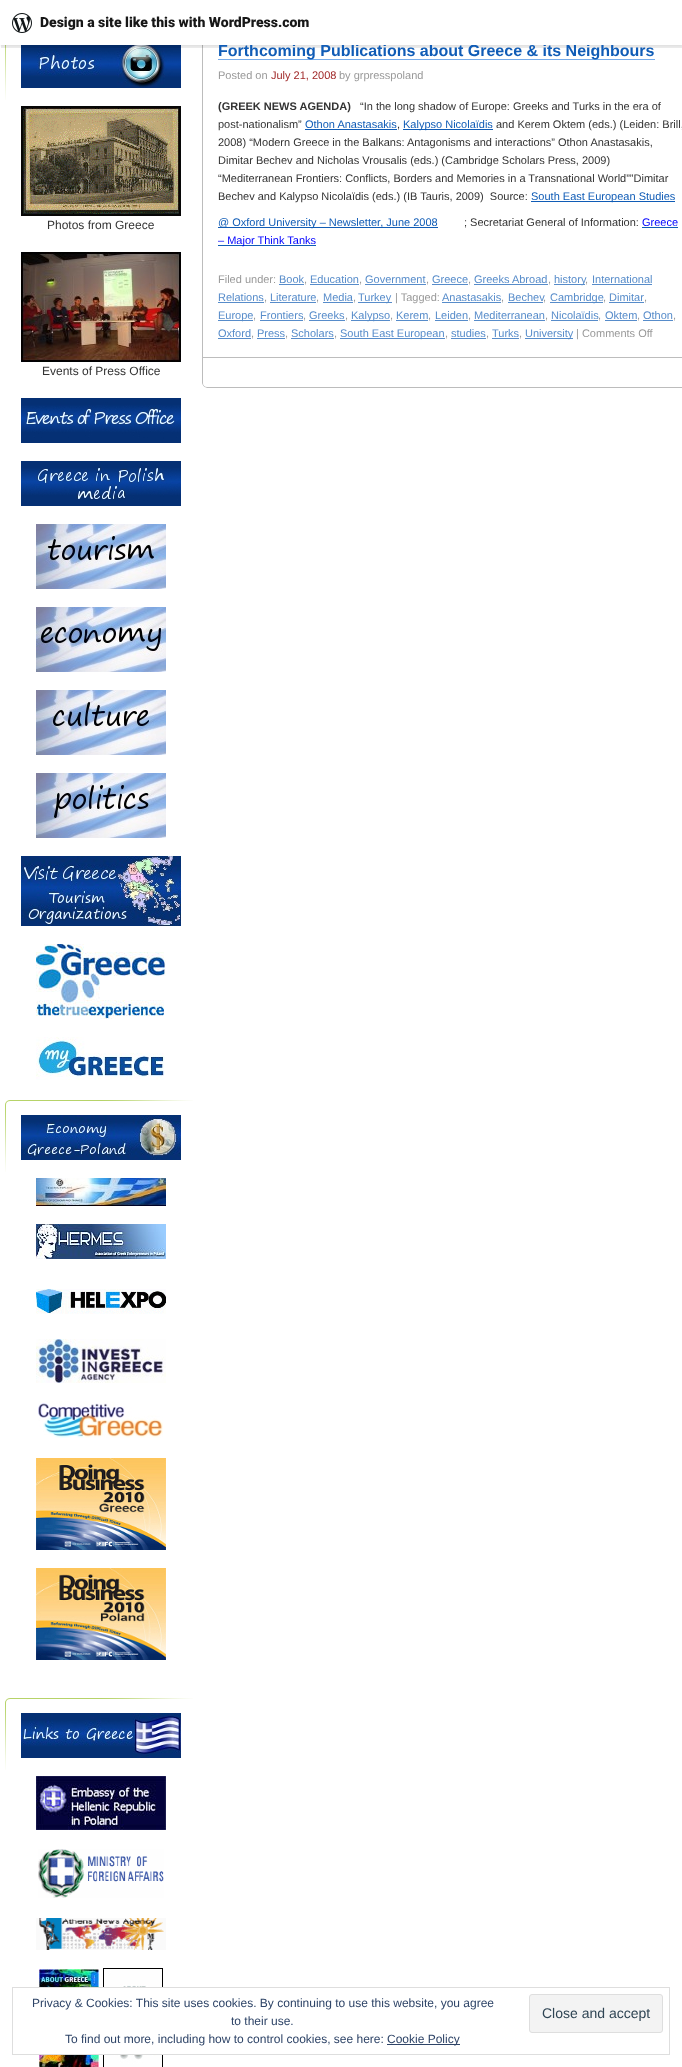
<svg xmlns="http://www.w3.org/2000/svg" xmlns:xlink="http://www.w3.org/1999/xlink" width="682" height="2067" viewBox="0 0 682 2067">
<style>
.cls-1{font:12px Liberation Sans;fill:#333333}
.cls-2{font:bold 16px Liberation Sans;fill:#105cb6}
.cls-3{font:900 14px Roboto;fill:#171717}
.cls-4{font:11px Liberation Sans;fill:#999999}
.cls-5{font:11px Liberation Sans;fill:#a12a2a}
.cls-6{font:bold 11px Liberation Sans;fill:#333333}
.cls-7{font:11px Liberation Sans;fill:#333333}
.cls-8{font:11px Liberation Sans;fill:#105cb6}
.cls-9{font:11px Liberation Sans;fill:#0000ff}
.cls-10{font:11px Liberation Sans;fill:#578cca}
.cls-11{font:12px Liberation Sans;fill:#2e4467}
.cls-12{font:14px Liberation Sans;fill:#2e4453}
</style>
<rect width="100%" height="100%" fill="#ffffff"/>
<image xlink:href="image1.png" x="5" y="45" width="188" height="55"/>
<image xlink:href="image2.png" x="21" y="45" width="160" height="43"/>
<rect fill="#bcbcbc" x="202" y="45" width="1" height="343"/>
<rect fill="#000000" fill-opacity="0.05" filter="blur(1px)" x="0" y="1" width="682" height="45"/>
<path fill="#000000" fill-opacity="0.08" d="M1 45V48H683V3H682V45Z"/>
<image xlink:href="image3.png" x="21" y="106" width="160" height="110"/>
<image xlink:href="image4.png" x="21" y="252" width="160" height="110"/>
<image xlink:href="image5.png" x="21" y="398" width="160" height="45"/>
<image xlink:href="image6.png" x="21" y="461" width="160" height="45"/>
<image xlink:href="image7.png" x="36" y="524" width="130" height="65"/>
<image xlink:href="image8.png" x="36" y="607" width="130" height="65"/>
<image xlink:href="image9.png" x="36" y="690" width="130" height="65"/>
<image xlink:href="image10.png" x="36" y="773" width="130" height="65"/>
<image xlink:href="image11.png" x="21" y="856" width="160" height="70"/>
<image xlink:href="image12.png" x="36" y="944" width="130" height="75"/>
<image xlink:href="image13.png" x="36" y="1037" width="129" height="43"/>
<image xlink:href="image14.png" x="5" y="1100" width="188" height="72"/>
<image xlink:href="image15.png" x="21" y="1115" width="160" height="45"/>
<image xlink:href="image16.png" x="36" y="1178" width="130" height="28"/>
<image xlink:href="image17.png" x="36" y="1224" width="130" height="35"/>
<image xlink:href="image18.png" x="36" y="1289" width="130" height="25"/>
<image xlink:href="image19.png" x="36" y="1339" width="130" height="44"/>
<image xlink:href="image20.png" x="38" y="1401" width="125" height="37"/>
<image xlink:href="image21.png" x="36" y="1458" width="130" height="92"/>
<image xlink:href="image22.png" x="36" y="1568" width="130" height="92"/>
<image xlink:href="image14.png" x="5" y="1698" width="188" height="72"/>
<image xlink:href="image23.png" x="21" y="1713" width="160" height="45"/>
<image xlink:href="image24.png" x="36" y="1776" width="130" height="54"/>
<image xlink:href="image25.png" x="38" y="1849" width="126" height="49"/>
<image xlink:href="image26.png" x="36" y="1918" width="130" height="32"/>
<image xlink:href="image27.png" x="39" y="1969" width="60" height="98"/>
<image xlink:href="image28.png" x="103" y="1968" width="60" height="99"/>
<image xlink:href="image29.png" x="202" y="383" width="480" height="5"/>
<rect fill="#75abea" x="218" y="59" width="437" height="1"/>
<rect fill="#105cb6" x="305" y="129" width="92" height="1"/>
<rect fill="#105cb6" x="403" y="129" width="90" height="1"/>
<rect fill="#105cb6" x="531" y="201" width="144" height="1"/>
<rect fill="#105cb6" x="218" y="227" width="220" height="1"/>
<rect fill="#105cb6" x="642" y="227" width="36" height="1"/>
<rect fill="#105cb6" x="218" y="245" width="98" height="1"/>
<rect fill="#578cca" x="279" y="284" width="25" height="1"/>
<rect fill="#578cca" x="310" y="284" width="49" height="1"/>
<rect fill="#578cca" x="365" y="284" width="61" height="1"/>
<rect fill="#578cca" x="432" y="284" width="36" height="1"/>
<rect fill="#578cca" x="474" y="284" width="74" height="1"/>
<rect fill="#578cca" x="554" y="284" width="31" height="1"/>
<rect fill="#578cca" x="592" y="284" width="60" height="1"/>
<rect fill="#578cca" x="218" y="302" width="46" height="1"/>
<rect fill="#578cca" x="270" y="302" width="46" height="1"/>
<rect fill="#578cca" x="323" y="302" width="30" height="1"/>
<rect fill="#578cca" x="358" y="302" width="34" height="1"/>
<rect fill="#578cca" x="442" y="302" width="59" height="1"/>
<rect fill="#578cca" x="508" y="302" width="35" height="1"/>
<rect fill="#578cca" x="550" y="302" width="53" height="1"/>
<rect fill="#578cca" x="609" y="302" width="35" height="1"/>
<rect fill="#578cca" x="218" y="320" width="35" height="1"/>
<rect fill="#578cca" x="260" y="320" width="43" height="1"/>
<rect fill="#578cca" x="309" y="320" width="36" height="1"/>
<rect fill="#578cca" x="351" y="320" width="39" height="1"/>
<rect fill="#578cca" x="396" y="320" width="32" height="1"/>
<rect fill="#578cca" x="435" y="320" width="33" height="1"/>
<rect fill="#578cca" x="474" y="320" width="71" height="1"/>
<rect fill="#578cca" x="551" y="320" width="47" height="1"/>
<rect fill="#578cca" x="605" y="320" width="32" height="1"/>
<rect fill="#578cca" x="643" y="320" width="30" height="1"/>
<rect fill="#578cca" x="218" y="338" width="33" height="1"/>
<rect fill="#578cca" x="257" y="338" width="28" height="1"/>
<rect fill="#578cca" x="291" y="338" width="43" height="1"/>
<rect fill="#578cca" x="340" y="338" width="105" height="1"/>
<rect fill="#578cca" x="451" y="338" width="35" height="1"/>
<rect fill="#578cca" x="492" y="338" width="27" height="1"/>
<rect fill="#578cca" x="525" y="338" width="48" height="1"/>
<rect fill="#bdbdbd" x="202" y="357" width="480" height="1"/>
<rect fill="#ffffff" x="39" y="1988" width="124" height="66"/>
<rect fill="none" stroke="#dedede" x="12.5" y="1987.5" width="657" height="67"/>
<rect fill="#f3f3f3" stroke="#dedede" x="529.5" y="1994.5" width="133" height="38" rx="2.5"/>
<rect fill="#2e4467" x="387" y="2044" width="73" height="1"/>
<text class="cls-1" x="47" y="229">Photos from Greece</text>
<text class="cls-1" x="42" y="375">Events of Press Office</text>
<text class="cls-2" x="218" y="56">Forthcoming Publications about Greece &amp; its Neighbours</text>
<rect fill="#ffffff" x="0" y="0" width="682" height="45"/>
<image xlink:href="image0.png" x="12" y="13" width="20" height="20"/>
<text class="cls-3" x="40" y="27">Design a site like this with WordPress.com</text>
<text class="cls-4" x="218" y="79">Posted on</text>
<text class="cls-5" x="271" y="79">July 21, 2008</text>
<text class="cls-4" x="339" y="79">by grpresspoland</text>
<text class="cls-6" x="218" y="110">(GREEK NEWS AGENDA)</text>
<text class="cls-7" x="360" y="110">“In the long shadow of Europe: Greeks and Turks in the era of</text>
<text class="cls-7" x="218" y="128">post-nationalism”</text>
<text class="cls-8" x="305" y="128">Othon Anastasakis</text>
<text class="cls-7" x="397" y="128">,</text>
<text class="cls-8" x="403" y="128">Kalypso Nicolaïdis</text>
<text class="cls-7" x="496" y="128">and Kerem Oktem (eds.) (Leiden: Brill,</text>
<text class="cls-7" xml:space="preserve"><tspan x="218" y="146">2008) “Modern Greece in the Balkans: Antagonisms and interactions” Othon Anastasakis,</tspan><tspan x="218" y="164">Dimitar Bechev and Nicholas Vrousalis (eds.) (Cambridge Scholars Press, 2009)</tspan><tspan x="218" y="182">“Mediterranean Frontiers: Conflicts, Borders and Memories in a Transnational World””Dimitar</tspan><tspan x="218" y="200">Bechev and Kalypso Nicolaïdis (eds.) (IB Tauris, 2009)  Source:</tspan></text>
<text class="cls-8" x="531" y="200">South East European Studies</text>
<text class="cls-8" x="218" y="226">@ Oxford University – Newsletter, June 2008</text>
<text class="cls-7" x="464" y="226">; Secretariat General of Information:</text>
<text class="cls-9" x="642" y="226">Greece</text>
<text class="cls-9" x="218" y="244">– Major Think Tanks</text>
<text class="cls-4" x="218" y="283">Filed under:</text>
<text class="cls-10" x="279" y="283">Book</text>
<text class="cls-4" x="304" y="283">,</text>
<text class="cls-10" x="310" y="283">Education</text>
<text class="cls-4" x="359" y="283">,</text>
<text class="cls-10" x="365" y="283">Government</text>
<text class="cls-4" x="426" y="283">,</text>
<text class="cls-10" x="432" y="283">Greece</text>
<text class="cls-4" x="468" y="283">,</text>
<text class="cls-10" x="474" y="283">Greeks Abroad</text>
<text class="cls-4" x="548" y="283">,</text>
<text class="cls-10" x="554" y="283">history</text>
<text class="cls-10" x="592" y="283">International</text>
<text class="cls-4" x="585" y="283">,</text>
<text class="cls-10" x="218" y="301">Relations</text>
<text class="cls-4" x="264" y="301">,</text>
<text class="cls-10" x="270" y="301">Literature</text>
<text class="cls-4" x="316" y="301">,</text>
<text class="cls-10" x="323" y="301">Media</text>
<text class="cls-4" x="353" y="301">,</text>
<text class="cls-10" x="358" y="301">Turkey</text>
<text class="cls-4" x="395" y="301">| Tagged:</text>
<text class="cls-10" x="442" y="301">Anastasakis</text>
<text class="cls-4" x="501" y="301">,</text>
<text class="cls-10" x="508" y="301">Bechev</text>
<text class="cls-10" x="550" y="301">Cambridge</text>
<text class="cls-10" x="609" y="301">Dimitar</text>
<text class="cls-4" x="543" y="301">,</text>
<text class="cls-4" x="603" y="301">,</text>
<text class="cls-4" x="644" y="301">,</text>
<text class="cls-10" x="218" y="319">Europe</text>
<text class="cls-4" x="253" y="319">,</text>
<text class="cls-10" x="260" y="319">Frontiers</text>
<text class="cls-4" x="303" y="319">,</text>
<text class="cls-10" x="309" y="319">Greeks</text>
<text class="cls-4" x="345" y="319">,</text>
<text class="cls-10" x="351" y="319">Kalypso</text>
<text class="cls-4" x="390" y="319">,</text>
<text class="cls-10" x="396" y="319">Kerem</text>
<text class="cls-4" x="428" y="319">,</text>
<text class="cls-10" x="435" y="319">Leiden</text>
<text class="cls-4" x="468" y="319">,</text>
<text class="cls-10" x="474" y="319">Mediterranean</text>
<text class="cls-4" x="545" y="319">,</text>
<text class="cls-10" x="551" y="319">Nicolaïdis</text>
<text class="cls-4" x="598" y="319">,</text>
<text class="cls-10" x="605" y="319">Oktem</text>
<text class="cls-4" x="637" y="319">,</text>
<text class="cls-10" x="643" y="319">Othon</text>
<text class="cls-4" x="673" y="319">,</text>
<text class="cls-10" x="218" y="337">Oxford</text>
<text class="cls-4" x="251" y="337">,</text>
<text class="cls-10" x="257" y="337">Press</text>
<text class="cls-4" x="285" y="337">,</text>
<text class="cls-10" x="291" y="337">Scholars</text>
<text class="cls-4" x="334" y="337">,</text>
<text class="cls-10" x="340" y="337">South East European</text>
<text class="cls-4" x="445" y="337">,</text>
<text class="cls-10" x="451" y="337">studies</text>
<text class="cls-4" x="486" y="337">,</text>
<text class="cls-10" x="492" y="337">Turks</text>
<text class="cls-4" x="519" y="337">,</text>
<text class="cls-10" x="525" y="337">University</text>
<text class="cls-4" x="576" y="337">| Comments Off</text>
<text class="cls-11" x="32" y="2007">Privacy &amp; Cookies: This site uses cookies. By continuing to use this website, you agree</text>
<text class="cls-11" x="231" y="2025">to their use.</text>
<text class="cls-12" x="542" y="2018">Close and accept</text>
<text class="cls-11" x="65" y="2043">To find out more, including how to control cookies, see here:</text>
<text class="cls-11" x="387" y="2043">Cookie Policy</text>
</svg>
